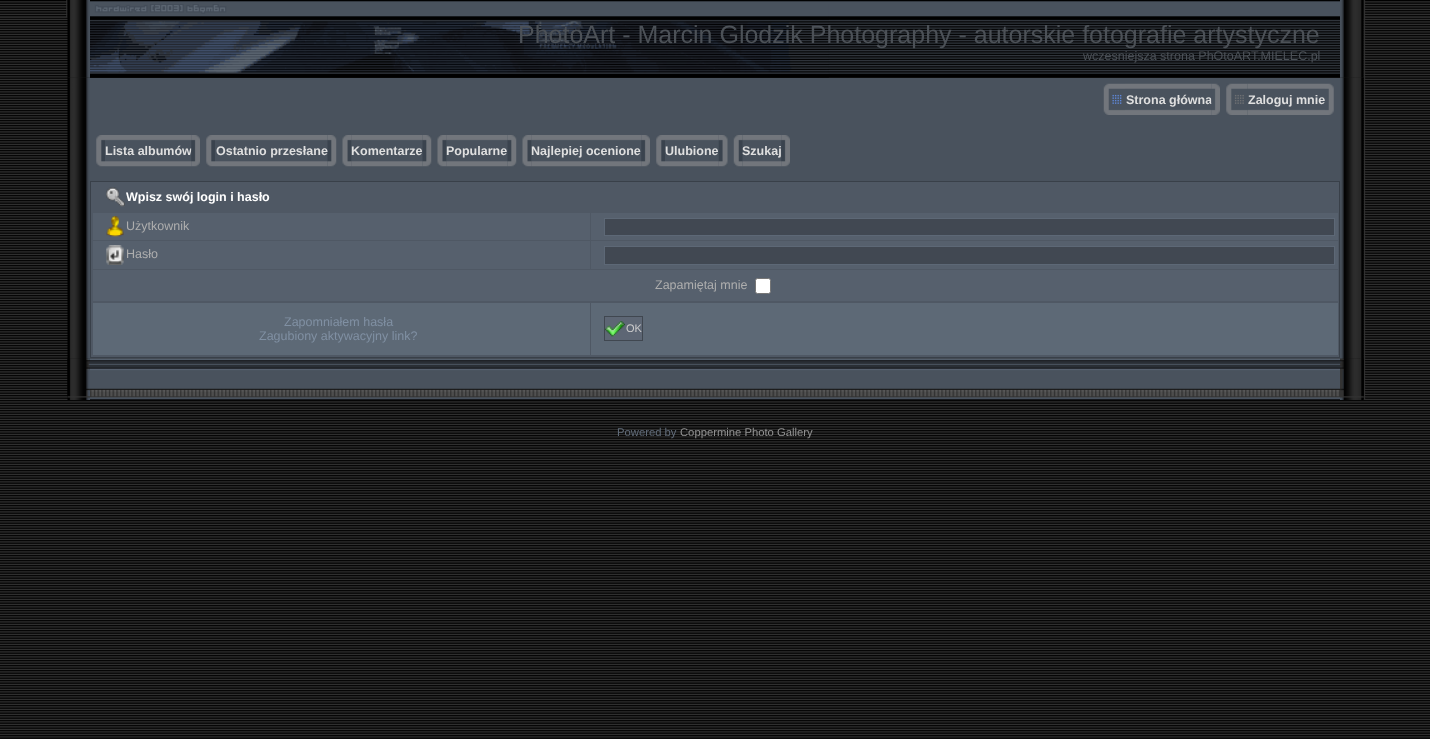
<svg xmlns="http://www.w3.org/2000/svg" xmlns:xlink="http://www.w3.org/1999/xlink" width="1430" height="739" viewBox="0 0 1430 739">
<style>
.cls-1{font:25px Liberation Sans;fill:#4c5157}
.cls-2{font:12.5px Liberation Sans;fill:#4c5157}
.cls-3{font:bold 12.5px Liberation Sans;fill:#dfdfdf}
.cls-4{font:bold 12.5px Liberation Sans;fill:#ffffff}
.cls-5{font:12.5px Liberation Sans;fill:#aeaeae}
.cls-6{font:12.5px Liberation Sans;fill:#8090a3}
.cls-7{font:11px Liberation Sans;fill:#cccccc}
.cls-8{font:11.25px Liberation Sans;fill:#616c7a}
.cls-9{font:11.25px Liberation Sans;fill:#949494}
</style>
<rect width="100%" height="100%" fill="#ffffff"/>
<image xlink:href="image0.png" x="0" y="0" width="1430" height="739"/>
<image xlink:href="image2.png" x="67" y="0" width="23" height="78"/>
<image xlink:href="image1.png" x="0" y="0" width="68" height="18"/>
<image xlink:href="image3.png" x="67" y="0" width="1" height="18"/>
<image xlink:href="image4.png" x="90" y="0" width="1250" height="78"/>
<image xlink:href="image5.png" x="90" y="4" width="739" height="74"/>
<image xlink:href="image6.png" x="1340" y="0" width="24" height="78"/>
<image xlink:href="image8.png" x="1363" y="0" width="3" height="399"/>
<image xlink:href="image7.png" x="1363" y="0" width="1" height="18"/>
<image xlink:href="image9.png" x="1363" y="0" width="67" height="18"/>
<image xlink:href="image10.png" x="67" y="77" width="23" height="282"/>
<rect fill="#49525d" x="90" y="78" width="1250" height="281"/>
<image xlink:href="image11.png" x="1103" y="83" width="22" height="32"/>
<image xlink:href="image12.png" x="1125" y="83" width="87" height="32"/>
<image xlink:href="image15.png" x="1247" y="83" width="78" height="32"/>
<image xlink:href="image14.png" x="1226" y="83" width="22" height="32"/>
<image xlink:href="image16.png" x="1325" y="83" width="9" height="32"/>
<image xlink:href="image17.png" x="96" y="135" width="9" height="32"/>
<image xlink:href="image18.png" x="105" y="135" width="87" height="32"/>
<image xlink:href="image17.png" x="206" y="135" width="9" height="32"/>
<image xlink:href="image20.png" x="215" y="135" width="113" height="32"/>
<image xlink:href="image21.png" x="327" y="135" width="10" height="32"/>
<image xlink:href="image23.png" x="351" y="135" width="72" height="32"/>
<image xlink:href="image22.png" x="342" y="135" width="10" height="32"/>
<image xlink:href="image26.png" x="446" y="135" width="62" height="32"/>
<image xlink:href="image25.png" x="437" y="135" width="10" height="32"/>
<image xlink:href="image28.png" x="531" y="135" width="111" height="32"/>
<image xlink:href="image25.png" x="522" y="135" width="10" height="32"/>
<image xlink:href="image29.png" x="641" y="135" width="9" height="32"/>
<image xlink:href="image17.png" x="656" y="135" width="9" height="32"/>
<image xlink:href="image30.png" x="665" y="135" width="54" height="32"/>
<image xlink:href="image31.png" x="718" y="135" width="10" height="32"/>
<image xlink:href="image33.png" x="742" y="135" width="40" height="32"/>
<image xlink:href="image32.png" x="733" y="135" width="10" height="32"/>
<image xlink:href="image34.png" x="781" y="135" width="9" height="32"/>
<rect fill="#4f5864" stroke="#394049" x="90.5" y="181.5" width="1249" height="176"/>
<image xlink:href="image35.png" x="106" y="187" width="19" height="20"/>
<rect fill="#56606d" x="93" y="213" width="497" height="27"/>
<image xlink:href="image36.png" x="106" y="216" width="18" height="21"/>
<rect fill="#56606d" x="591" y="213" width="747" height="27"/>
<rect fill="#414852" stroke="#5d6876" x="604.5" y="218.5" width="730" height="17"/>
<rect fill="#56606d" x="93" y="241" width="497" height="28"/>
<image xlink:href="image37.png" x="106" y="245" width="18" height="20"/>
<rect fill="#56606d" x="591" y="241" width="747" height="28"/>
<rect fill="#414852" stroke="#5d6876" x="604.5" y="246.5" width="730" height="18"/>
<rect fill="#56606d" x="93" y="270" width="1245" height="31"/>
<rect fill="#ffffff" stroke="#767676" x="755.5" y="278.5" width="15" height="15" rx="2"/>
<rect fill="#5d6976" x="93" y="303" width="497" height="52"/>
<rect fill="#5d6976" x="591" y="303" width="747" height="52"/>
<rect fill="#5d6674" stroke="#404750" x="604.5" y="316.5" width="38" height="24"/>
<image xlink:href="image38.png" x="605" y="321" width="20" height="16"/>
<image xlink:href="image39.png" x="1340" y="77" width="24" height="282"/>
<image xlink:href="image40.png" x="67" y="358" width="23" height="42"/>
<image xlink:href="image41.png" x="67" y="358" width="23" height="40"/>
<image xlink:href="image42.png" x="90" y="358" width="1250" height="42"/>
<image xlink:href="image43.png" x="1340" y="358" width="24" height="42"/>
<image xlink:href="image44.png" x="1340" y="358" width="24" height="40"/>
<text class="cls-1" x="518" y="43">PhotoArt - Marcin Glodzik Photography - autorskie fotografie artystyczne</text>
<text class="cls-2" x="1083" y="60">wczesniejsza strona PhOtoART.MIELEC.pl</text>
<text class="cls-3" x="1126" y="104">Strona główna</text>
<image xlink:href="image13.png" x="1211" y="83" width="9" height="32"/>
<text class="cls-3" x="1248" y="104">Zaloguj mnie</text>
<text class="cls-3" x="105" y="155">Lista albumów</text>
<image xlink:href="image19.png" x="191" y="135" width="9" height="32"/>
<text class="cls-3" x="216" y="155">Ostatnio przesłane</text>
<text class="cls-3" x="351" y="155">Komentarze</text>
<image xlink:href="image24.png" x="422" y="135" width="10" height="32"/>
<text class="cls-3" x="446" y="155">Popularne</text>
<image xlink:href="image27.png" x="507" y="135" width="10" height="32"/>
<text class="cls-3" x="531" y="155">Najlepiej ocenione</text>
<text class="cls-3" x="665" y="155">Ulubione</text>
<text class="cls-3" x="742" y="155">Szukaj</text>
<text class="cls-4" x="126" y="201">Wpisz swój login i hasło</text>
<text class="cls-5" x="126" y="230">Użytkownik</text>
<text class="cls-5" x="126" y="258">Hasło</text>
<text class="cls-5" x="655" y="289">Zapamiętaj mnie</text>
<text class="cls-6" x="284" y="326">Zapomniałem hasła</text>
<text class="cls-6" x="259" y="340">Zagubiony aktywacyjny link?</text>
<text class="cls-7" x="626" y="332">OK</text>
<text class="cls-8" x="617" y="436">Powered by</text>
<text class="cls-9" x="680" y="436">Coppermine Photo Gallery</text>
</svg>
